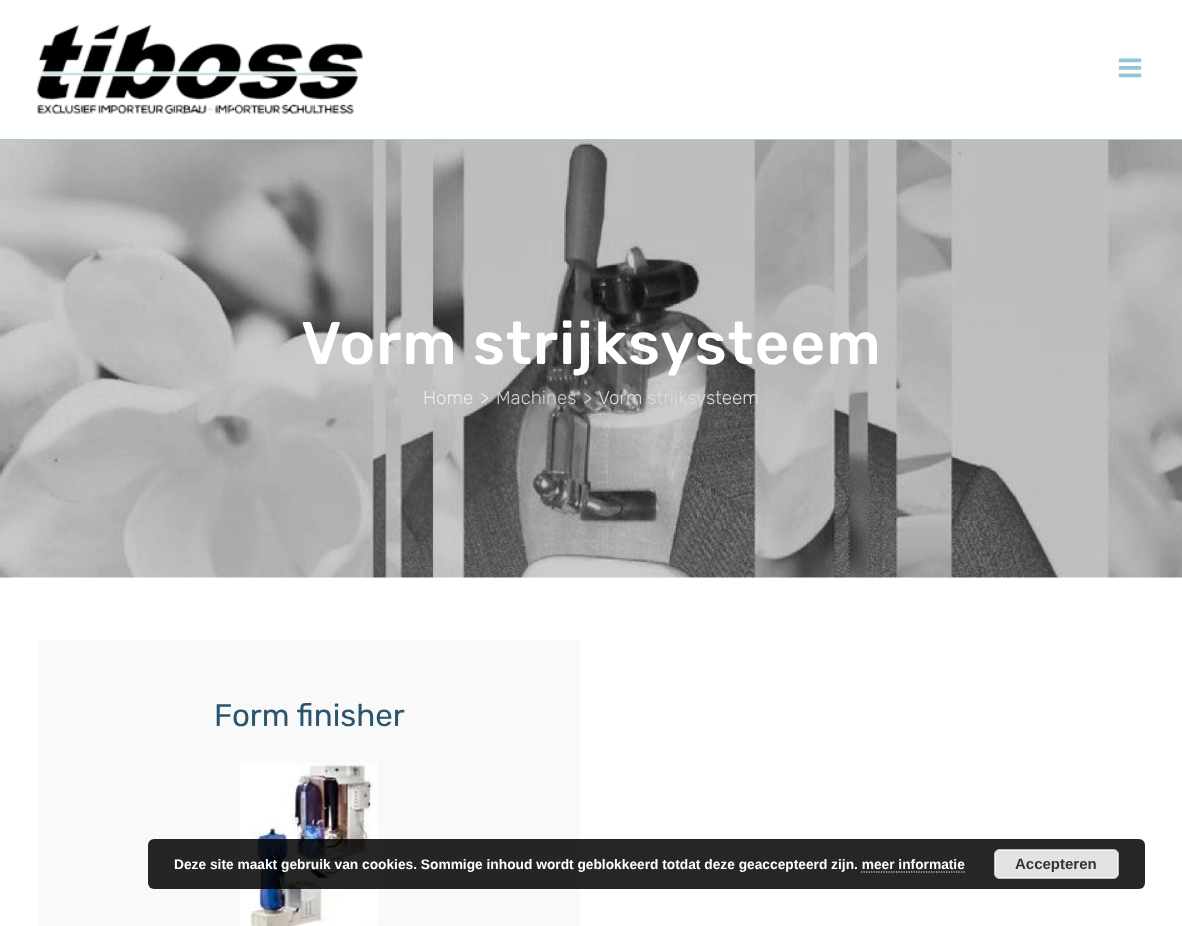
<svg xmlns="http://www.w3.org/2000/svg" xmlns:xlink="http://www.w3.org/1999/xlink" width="1182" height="926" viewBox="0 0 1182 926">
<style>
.cls-1{font:500 60px Rubik;letter-spacing:1.25px;fill:#ffffff}
.cls-2{font:300 18.75px Rubik;fill:#ececec}
.cls-3{font:300 18.75px Rubik;fill:#cfcfcf}
.cls-4{font:300 18.75px Rubik;fill:#d5d5d5}
.cls-5{font:300 18.75px Rubik;fill:#dbdbdb}
.cls-6{font:31.25px Rubik;fill:#29566e}
.cls-7{font:bold 13.75px Liberation Sans;fill:#ffffff}
.cls-8{font:bold 15px Liberation Sans;fill:#333333}
</style>
<rect width="100%" height="100%" fill="#ffffff"/>
<rect fill="#a7ced9" x="0" y="139" width="1182" height="1"/>
<image xlink:href="image0.png" x="37" y="25" width="326" height="89"/>
<image xlink:href="image1.png" x="1118" y="58" width="24" height="20"/>
<image xlink:href="image2.png" x="0" y="140" width="1182" height="438"/>
<rect fill="#f9f9f9" x="38" y="640" width="542" height="286"/>
<image xlink:href="image3.png" x="240" y="763" width="138" height="163"/>
<rect fill="#000000" fill-opacity="0.85" x="148" y="839" width="997" height="50" rx="6"/>
<rect fill="#e3e3e3" x="994" y="849" width="125" height="30" rx="6"/>
<rect fill="none" stroke="#f6f6f6" x="995.5" y="850.5" width="122" height="27" rx="4.5"/>
<rect fill="none" stroke="#bbbbbb" x="994.5" y="849.5" width="124" height="29" rx="5.5"/>
<path fill="none" stroke="#ffffff" stroke-width="1.2" stroke-dasharray="1.25 1.25" d="M861 872H965"/>
<text class="cls-1" x="301" y="364">Vorm strijksysteem</text>
<text class="cls-2" x="423" y="404">Home</text>
<text class="cls-2" x="480" y="404">&gt;</text>
<text class="cls-3" x="496" y="404">Machines</text>
<text class="cls-4" x="583" y="404">&gt;</text>
<text class="cls-5" x="598" y="404">Vorm strijksysteem</text>
<text class="cls-6" x="214" y="726">Form finisher</text>
<text class="cls-7" x="174" y="869">Deze site maakt gebruik van cookies. Sommige inhoud wordt geblokkeerd totdat deze geaccepteerd zijn. meer informatie</text>
<text class="cls-8" x="1015" y="869">Accepteren</text>
</svg>
